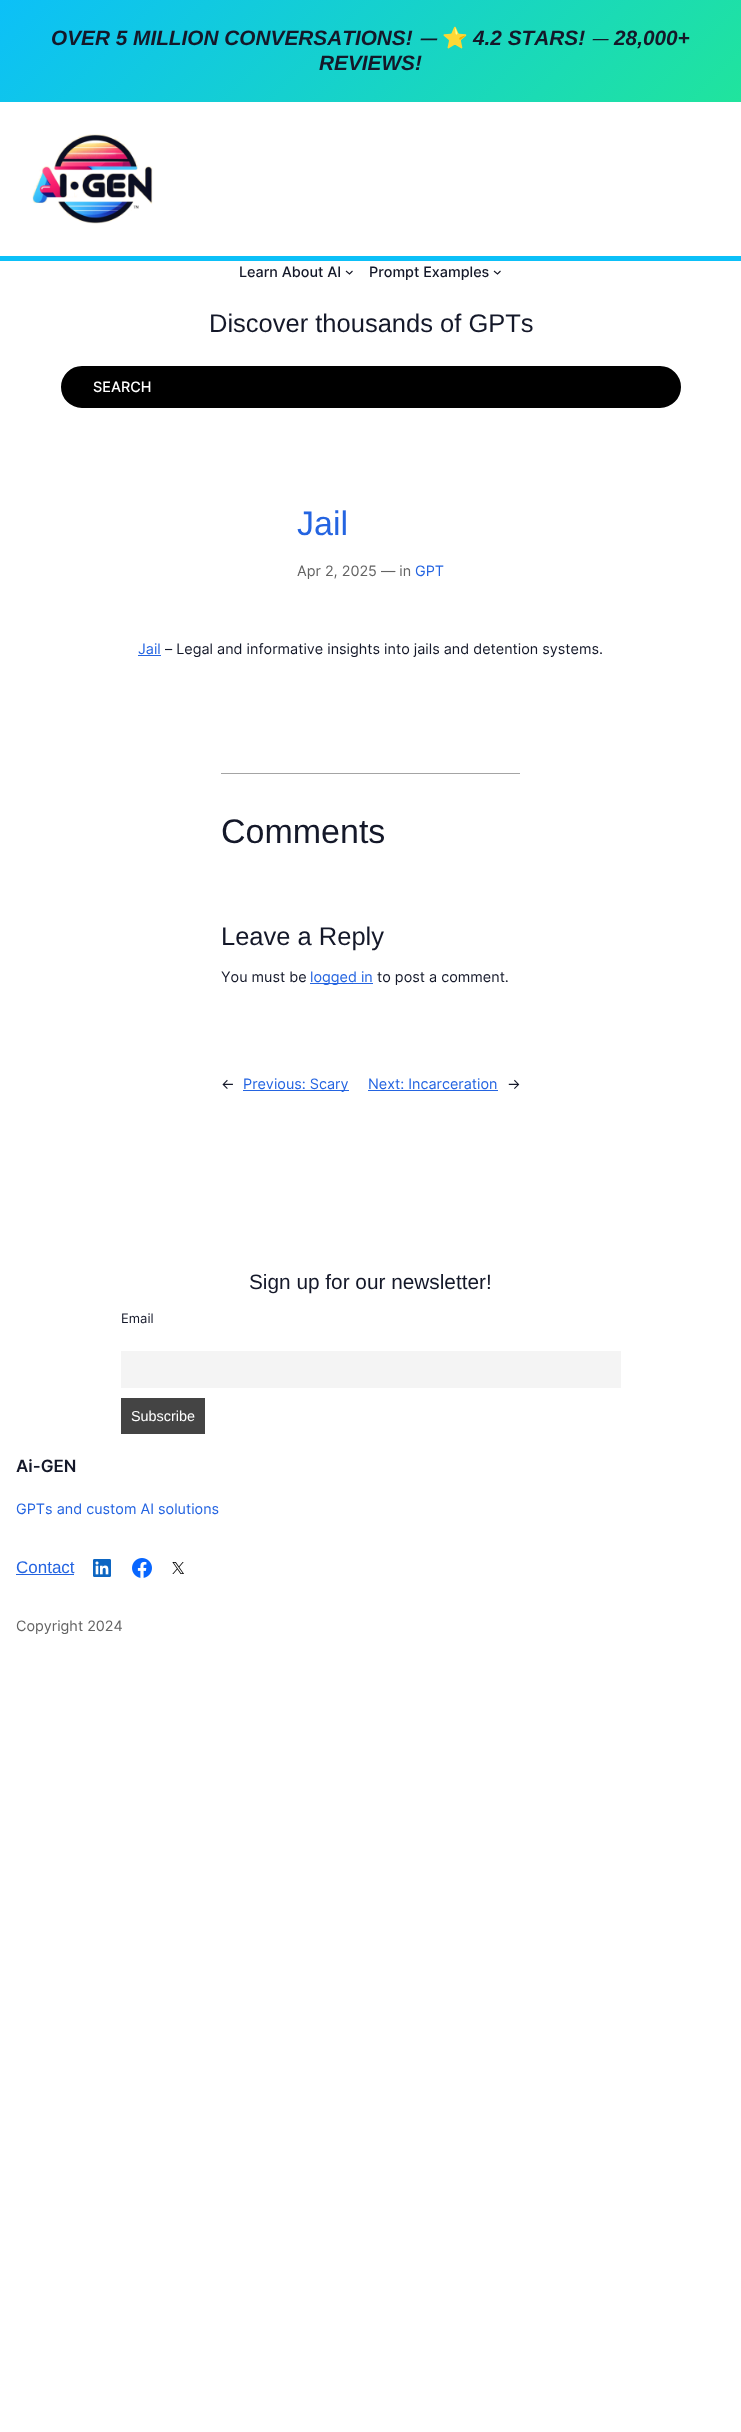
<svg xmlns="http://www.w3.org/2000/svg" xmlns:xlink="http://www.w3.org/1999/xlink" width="741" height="2432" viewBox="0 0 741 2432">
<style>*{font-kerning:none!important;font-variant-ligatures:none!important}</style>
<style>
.cls-1{font:italic bold 20.8px Liberation Sans;fill:#141829}
.cls-2{font:italic bold 20.8px FreeSerif;fill:#141829}
.cls-3{font:bold 20.8px Noto Color Emoji;fill:#141829}
.cls-4{font:italic 20.8px FreeSerif;fill:#141829}
.cls-5{font:500 14.4px Inter;fill:#141829}
.cls-6{font:25.5px Liberation Sans;fill:#141829}
.cls-7{font:500 14.4px Inter;fill:#ffffff}
.cls-8{font:34px Liberation Sans;fill:#2464e1}
.cls-9{font:14.4px Inter;fill:#636363}
.cls-10{font:14.4px Inter;fill:#2464e1}
.cls-11{font:14.4px Inter;fill:#141829}
.cls-12{font:34px Liberation Sans;fill:#141829}
.cls-13{font:20.8px Liberation Sans;fill:#141829}
.cls-14{font:13px Inter;fill:#141829}
.cls-15{font:14.4px Liberation Sans;fill:#ffffff}
.cls-16{font:600 17px Inter;fill:#141829}
.cls-17{font:17px Liberation Sans;fill:#2464e1}
</style>
<defs>
<linearGradient id="g1" gradientUnits="userSpaceOnUse" x1="160" y1="-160" x2="581" y2="262"><stop offset="0" stop-color="#0cc0f8"/><stop offset="1" stop-color="#20e49d"/></linearGradient>
</defs>
<rect width="100%" height="100%" fill="#ffffff"/>
<rect fill="url(#g1)" x="0" y="0" width="741" height="102"/>
<image xlink:href="image0.png" x="32" y="134" width="121" height="90"/>
<rect fill="#0cc0f8" x="0" y="256" width="741" height="5"/>
<path fill="none" stroke="#151726" stroke-width="1.1" d="M346 271L349.5 274L352.5 271"/>
<path fill="none" stroke="#151726" stroke-width="1.1" d="M494 271L497.5 274L500.5 271"/>
<rect fill="#000000" stroke="#ffffff" stroke-width="2" x="60" y="365" width="622" height="44" rx="22"/>
<rect fill="#2464e1" x="138" y="655" width="23" height="1"/>
<rect fill="#a4a4a4" x="221" y="773" width="299" height="1"/>
<rect fill="#2464e1" x="310" y="983" width="63" height="1"/>
<rect fill="#2464e1" x="243" y="1090" width="106" height="1"/>
<rect fill="#2464e1" x="368" y="1090" width="130" height="1"/>
<rect fill="#f4f4f4" x="121" y="1351" width="500" height="37"/>
<rect fill="#444444" x="121" y="1398" width="84" height="36"/>
<rect fill="#2464e1" x="16" y="1574" width="58" height="1"/>
<image xlink:href="image1.png" x="93" y="1559" width="18" height="18"/>
<image xlink:href="image2.png" x="132" y="1558" width="20" height="20"/>
<image xlink:href="image3.png" x="172" y="1562" width="12" height="12"/>
<text class="cls-1" x="51" y="45">OVER 5 MILLION CONVERSATIONS!</text>
<text class="cls-2" x="419" y="45">⏤</text>
<text class="cls-3" x="442" y="45">⭐</text>
<text class="cls-1" x="473" y="45">4.2 STARS!</text>
<text class="cls-4" x="591" y="45">⏤</text>
<text class="cls-1" x="614" y="45">28,000+</text>
<text class="cls-1" x="319" y="70">REVIEWS!</text>
<text class="cls-5" x="239" y="277">Learn About AI</text>
<text class="cls-5" x="369" y="277">Prompt Examples</text>
<text class="cls-6" x="209" y="332">Discover thousands of GPTs</text>
<text class="cls-7" x="93" y="392">SEARCH</text>
<text class="cls-8" x="297" y="535">Jail</text>
<text class="cls-9" x="297" y="576">Apr 2, 2025 — in</text>
<text class="cls-10" x="415" y="576">GPT</text>
<text class="cls-10" x="138" y="654">Jail</text>
<text class="cls-11" x="165" y="654">– Legal and informative insights into jails and detention systems.</text>
<text class="cls-12" x="221" y="843">Comments</text>
<text class="cls-6" x="221" y="945">Leave a Reply</text>
<text class="cls-11" x="221" y="982">You must be</text>
<text class="cls-10" x="310" y="982">logged in</text>
<text class="cls-11" x="377" y="982">to post a comment.</text>
<text class="cls-11" x="221" y="1089">←</text>
<text class="cls-10" x="243" y="1089">Previous: Scary</text>
<text class="cls-10" x="368" y="1089">Next: Incarceration</text>
<text class="cls-11" x="507" y="1089">→</text>
<text class="cls-13" x="249" y="1289">Sign up for our newsletter!</text>
<text class="cls-14" x="121" y="1323">Email</text>
<text class="cls-15" x="131" y="1421">Subscribe</text>
<text class="cls-16" x="16" y="1472">Ai-GEN</text>
<text class="cls-10" x="16" y="1514">GPTs and custom AI solutions</text>
<text class="cls-17" x="16" y="1573">Contact</text>
<text class="cls-9" x="16" y="1631">Copyright 2024</text>
</svg>
